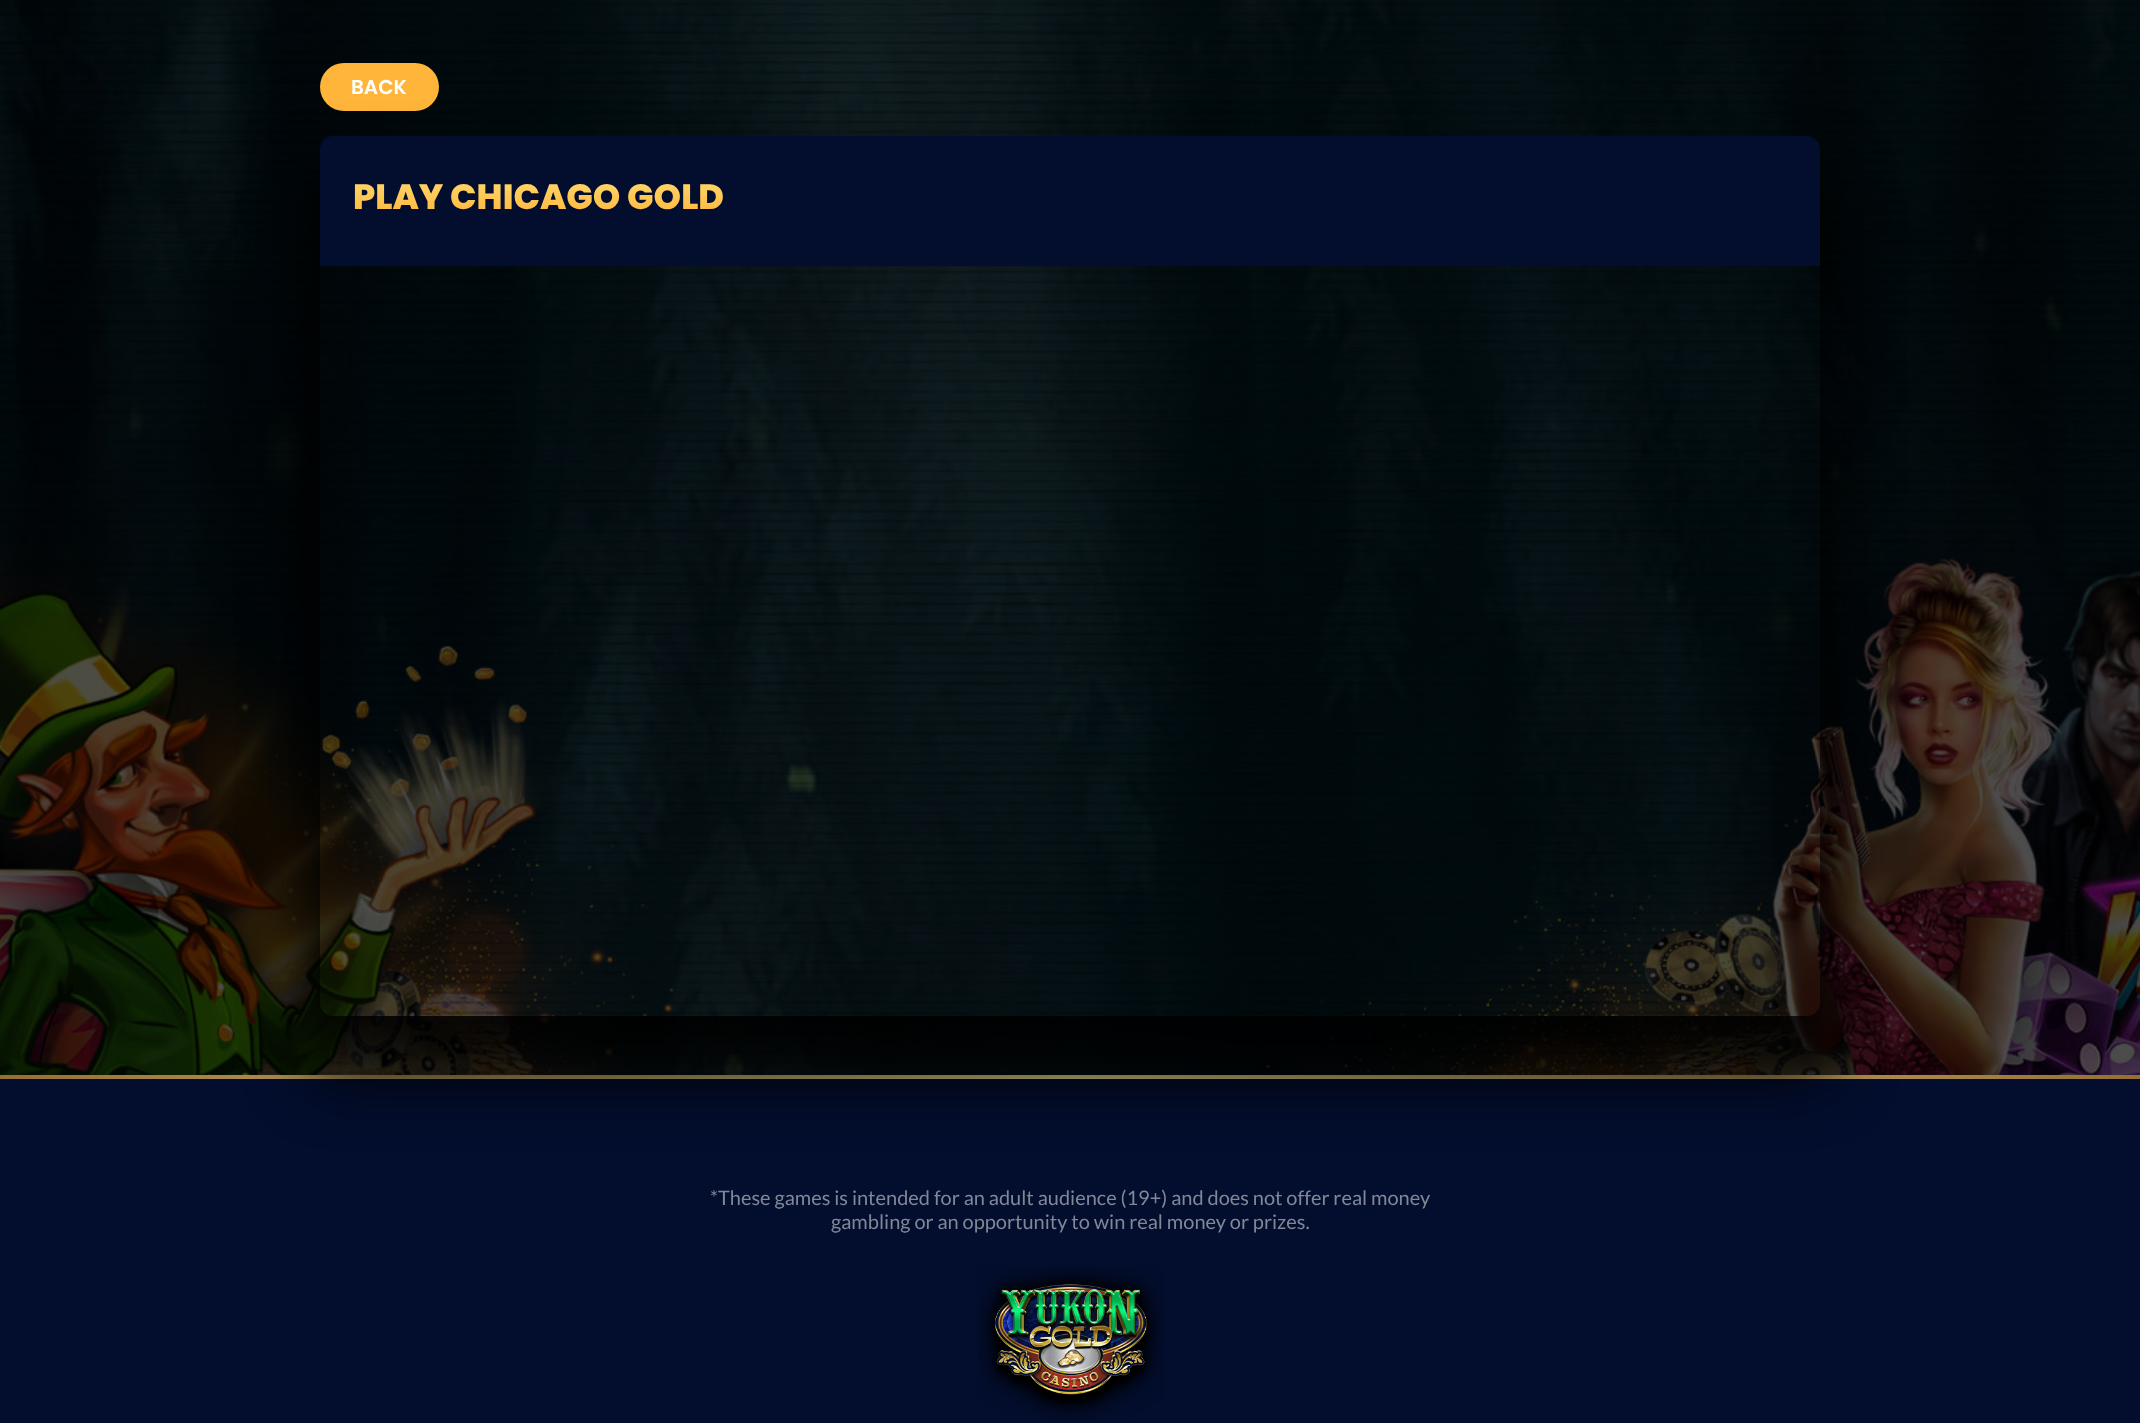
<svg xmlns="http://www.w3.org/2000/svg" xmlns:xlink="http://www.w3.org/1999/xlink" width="2140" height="1423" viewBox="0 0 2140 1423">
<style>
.cls-1{font:600 20px Poppins;fill:#ffffff}
.cls-2{font:800 35px Poppins;fill:url(#g2)}
.cls-3{font:20px Lato;fill:#818797}
</style>
<defs>
<linearGradient id="g1" gradientUnits="userSpaceOnUse" x1="0" y1="1077" x2="2140" y2="1077"><stop offset="0" stop-color="#956e33"/><stop offset="0.5" stop-color="#efe497"/><stop offset="1" stop-color="#956e33"/></linearGradient>
<clipPath id="clip1"><path d="M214 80H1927V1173H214ZM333 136H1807C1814 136 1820 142 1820 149V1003C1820 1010 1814 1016 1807 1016H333C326 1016 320 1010 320 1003V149C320 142 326 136 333 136Z" clip-rule="evenodd"/></clipPath>
<linearGradient id="g2" gradientUnits="userSpaceOnUse" x1="1070" y1="218" x2="1070" y2="176"><stop offset="0" stop-color="#ffb53a"/><stop offset="1" stop-color="#ffda6f"/></linearGradient>
</defs>
<rect width="100%" height="100%" fill="#030e2e"/>
<image xlink:href="image0.png" x="0" y="0" width="2140" height="1075"/>
<rect fill="#ffb53a" x="320" y="63" width="119" height="48" rx="24"/>
<rect fill="url(#g1)" x="0" y="1075" width="2140" height="4"/>
<g clip-path="url(#clip1)">
<rect fill="#000000" fill-opacity="0.87" filter="blur(31px)" x="308" y="174" width="1525" height="905" rx="25"/>
</g>
<path fill="#030e2e" d="M333 136H1807C1814 136 1820 142 1820 149V266H320V149C320 142 326 136 333 136Z"/>
<image xlink:href="image1.png" x="977" y="1266" width="188" height="154"/>
<text class="cls-1" x="351" y="94">BACK</text>
<text class="cls-2" x="353" y="209">PLAY CHICAGO GOLD</text>
<text class="cls-3" x="710" y="1205">*These games is intended for an adult audience (19+) and does not offer real money</text>
<text class="cls-3" x="831" y="1229">gambling or an opportunity to win real money or prizes.</text>
</svg>
